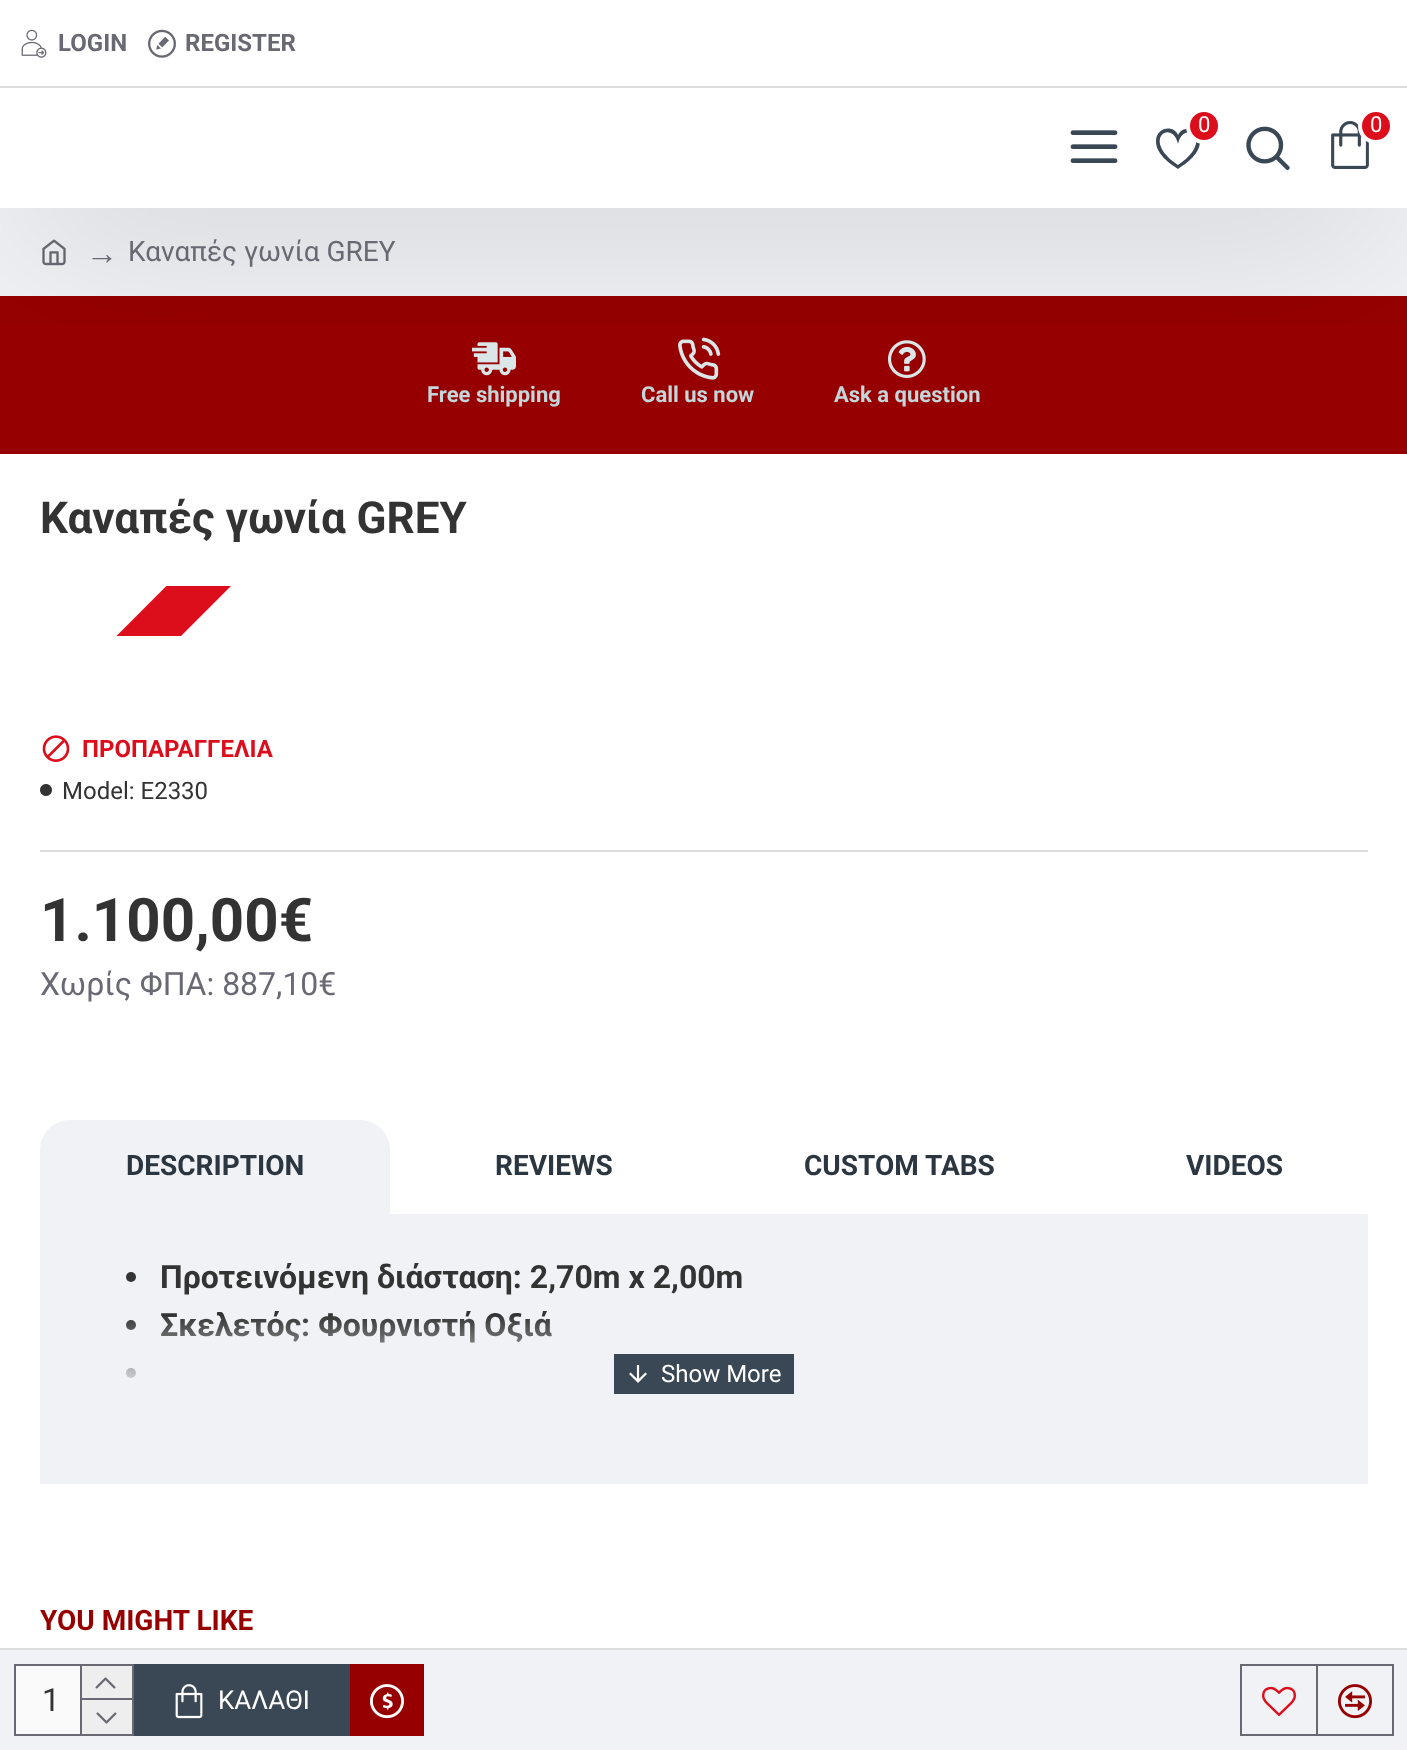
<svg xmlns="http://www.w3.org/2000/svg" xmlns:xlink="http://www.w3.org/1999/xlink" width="1407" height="1750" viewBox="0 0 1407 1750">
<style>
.cls-1{font:bold 24px Roboto;fill:#696973}
.cls-2{font:22px Roboto;fill:#ffffff}
.cls-3{font:32px Liberation Serif;fill:#696973}
.cls-4{font:28px Roboto;fill:#696973}
.cls-5{font:bold 22px Roboto;fill:#c3d7db}
.cls-6{font:bold 44px Roboto;fill:#333333}
.cls-7{font:bold 24px Roboto;fill:#dd0e1c}
.cls-8{font:24px Roboto;fill:#333333}
.cls-9{font:bold 60px Roboto;fill:#333333}
.cls-10{font:32px Roboto;fill:#696973}
.cls-11{font:32px Roboto;fill:#333333}
.cls-12{font:26px Roboto;fill:#ffffff}
.cls-13{font:bold 28px Roboto;fill:#2c3640}
.cls-14{font:bold 32px Roboto;fill:#333333}
.cls-15{font:24px Roboto;fill:#ffffff}
.cls-16{font:bold 28px Roboto;fill:#970000}
</style>
<defs>
<clipPath id="clip1"><rect x="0" y="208" width="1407" height="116"/></clipPath>
<clipPath id="clip2"><rect x="40" y="586" width="1328" height="50"/></clipPath>
<linearGradient id="g1" gradientUnits="userSpaceOnUse" x1="704" y1="1314" x2="704" y2="1394"><stop offset="0" stop-color="#f0f2f5" stop-opacity="0"/><stop offset="1" stop-color="#f0f2f5"/></linearGradient>
</defs>
<rect width="100%" height="100%" fill="#ffffff"/>
<rect fill="#f0f2f5" x="0" y="208" width="1407" height="88"/>
<image xlink:href="image5.png" x="42" y="239" width="24" height="27"/>
<rect fill="#970000" x="0" y="296" width="1407" height="158"/>
<image xlink:href="image6.png" x="472" y="342" width="44" height="34"/>
<image xlink:href="image7.png" x="678" y="337" width="43" height="43"/>
<image xlink:href="image8.png" x="888" y="340" width="38" height="38"/>
<g clip-path="url(#clip1)">
<rect fill="#000000" fill-opacity="0.2" filter="blur(90px)" x="20" y="138" width="1368" height="80"/>
</g>
<rect fill="#ffffff" x="0" y="0" width="1407" height="86"/>
<rect fill="#dddddd" x="0" y="86" width="1407" height="2"/>
<image xlink:href="image0.png" x="21" y="29" width="26" height="29"/>
<image xlink:href="image1.png" x="148" y="29" width="28" height="29"/>
<image xlink:href="image2.png" x="1070" y="130" width="48" height="33"/>
<path fill="#3a4754" d="M1178 144C1184 118 1216 140 1178 165C1140 140 1172 118 1178 144ZM1156 141C1156 154 1169 163 1178 169C1187 163 1200 154 1200 141C1200 139 1199 136 1198 134C1193 127 1182 127 1178 135C1173 124 1156 128 1156 141Z"/>
<circle fill="#dd0e1c" stroke="#ffffff" stroke-width="4" cx="1204" cy="126" r="16"/>
<image xlink:href="image3.png" x="1246" y="126" width="44" height="44"/>
<image xlink:href="image4.png" x="1331" y="121" width="38" height="48"/>
<circle fill="#dd0e1c" stroke="#ffffff" stroke-width="4" cx="1376" cy="126" r="16"/>
<g clip-path="url(#clip2)">
<path fill="#dd0e1c" d="M-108 861L316 436L348 469L-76 893Z"/>
</g>
<rect fill="#dddddd" x="40" y="850" width="1328" height="2"/>
<image xlink:href="image9.png" x="42" y="735" width="28" height="27"/>
<image xlink:href="image10.png" x="40" y="784" width="12" height="12"/>
<rect fill="#f0f2f5" x="0" y="1650" width="1407" height="100"/>
<rect fill="#dddddd" x="0" y="1648" width="1407" height="2"/>
<rect fill="none" stroke="#696973" stroke-width="2" x="15" y="1665" width="118" height="70"/>
<rect fill="#fafafa" x="16" y="1666" width="64" height="68"/>
<rect fill="#696973" x="80" y="1666" width="2" height="68"/>
<rect fill="#eeeeee" x="82" y="1666" width="50" height="32"/>
<rect fill="#696973" x="82" y="1698" width="50" height="2"/>
<image xlink:href="image11.png" x="95" y="1677" width="21" height="12"/>
<rect fill="#eeeeee" x="82" y="1700" width="50" height="34"/>
<image xlink:href="image12.png" x="96" y="1712" width="21" height="12"/>
<rect fill="#3a4754" x="134" y="1664" width="216" height="72"/>
<image xlink:href="image13.png" x="175" y="1684" width="28" height="35"/>
<rect fill="#970000" x="350" y="1664" width="74" height="72"/>
<image xlink:href="image14.png" x="370" y="1684" width="34" height="35"/>
<rect fill="none" stroke="#696973" stroke-width="2" x="1241" y="1665" width="76" height="70"/>
<image xlink:href="image15.png" x="1262" y="1686" width="34" height="30"/>
<rect fill="none" stroke="#696973" stroke-width="2" x="1317" y="1665" width="76" height="70"/>
<image xlink:href="image16.png" x="1338" y="1684" width="34" height="35"/>
<path fill="#f0f2f5" d="M70 1120H360C376.5 1120 390 1133.5 390 1150V1214H40V1150C40 1133.5 53.5 1120 70 1120Z"/>
<rect fill="#f0f2f5" x="40" y="1214" width="1328" height="270"/>
<circle fill="#333333" cx="131" cy="1277" r="5"/>
<circle fill="#333333" cx="131" cy="1325" r="5"/>
<circle fill="#333333" cx="131" cy="1373" r="5"/>
<rect fill="#3a4754" x="614" y="1354" width="180" height="40"/>
<image xlink:href="image17.png" x="629" y="1365" width="18" height="18"/>
<text class="cls-1" x="58" y="51">LOGIN</text>
<text class="cls-1" x="185" y="51">REGISTER</text>
<text class="cls-2" x="1198" y="132">0</text>
<text class="cls-2" x="1370" y="132">0</text>
<text class="cls-3" x="86" y="264">→</text>
<text class="cls-4" x="128" y="261">Καναπές γωνία GREY</text>
<text class="cls-5" x="427" y="402">Free shipping</text>
<text class="cls-5" x="641" y="402">Call us now</text>
<text class="cls-5" x="834" y="402">Ask a question</text>
<text class="cls-6" x="40" y="533">Καναπές γωνία GREY</text>
<text class="cls-7" x="82" y="757">ΠΡΟΠΑΡΑΓΓΕΛΙΑ</text>
<text class="cls-8" x="62" y="799">Model: E2330</text>
<text class="cls-9" x="40" y="941">1.100,00€</text>
<text class="cls-10" x="40" y="995">Χωρίς ΦΠΑ: 887,10€</text>
<text class="cls-11" x="42" y="1711">1</text>
<text class="cls-12" x="218" y="1709">ΚΑΛΑΘΙ</text>
<text class="cls-13" x="126" y="1175">DESCRIPTION</text>
<text class="cls-13" x="495" y="1175">REVIEWS</text>
<text class="cls-13" x="804" y="1175">CUSTOM TABS</text>
<text class="cls-13" x="1186" y="1175">VIDEOS</text>
<text class="cls-14"><tspan x="160" y="1288">Προτεινόμενη διάσταση: 2,70m x 2,00m</tspan><tspan x="160" y="1336">Σκελετός: Φουρνιστή Οξιά</tspan></text>
<rect fill="url(#g1)" x="126" y="1316" width="427" height="62"/>
<text class="cls-15" x="661" y="1382">Show More</text>
<text class="cls-16" x="40" y="1630">YOU MIGHT LIKE</text>
</svg>
